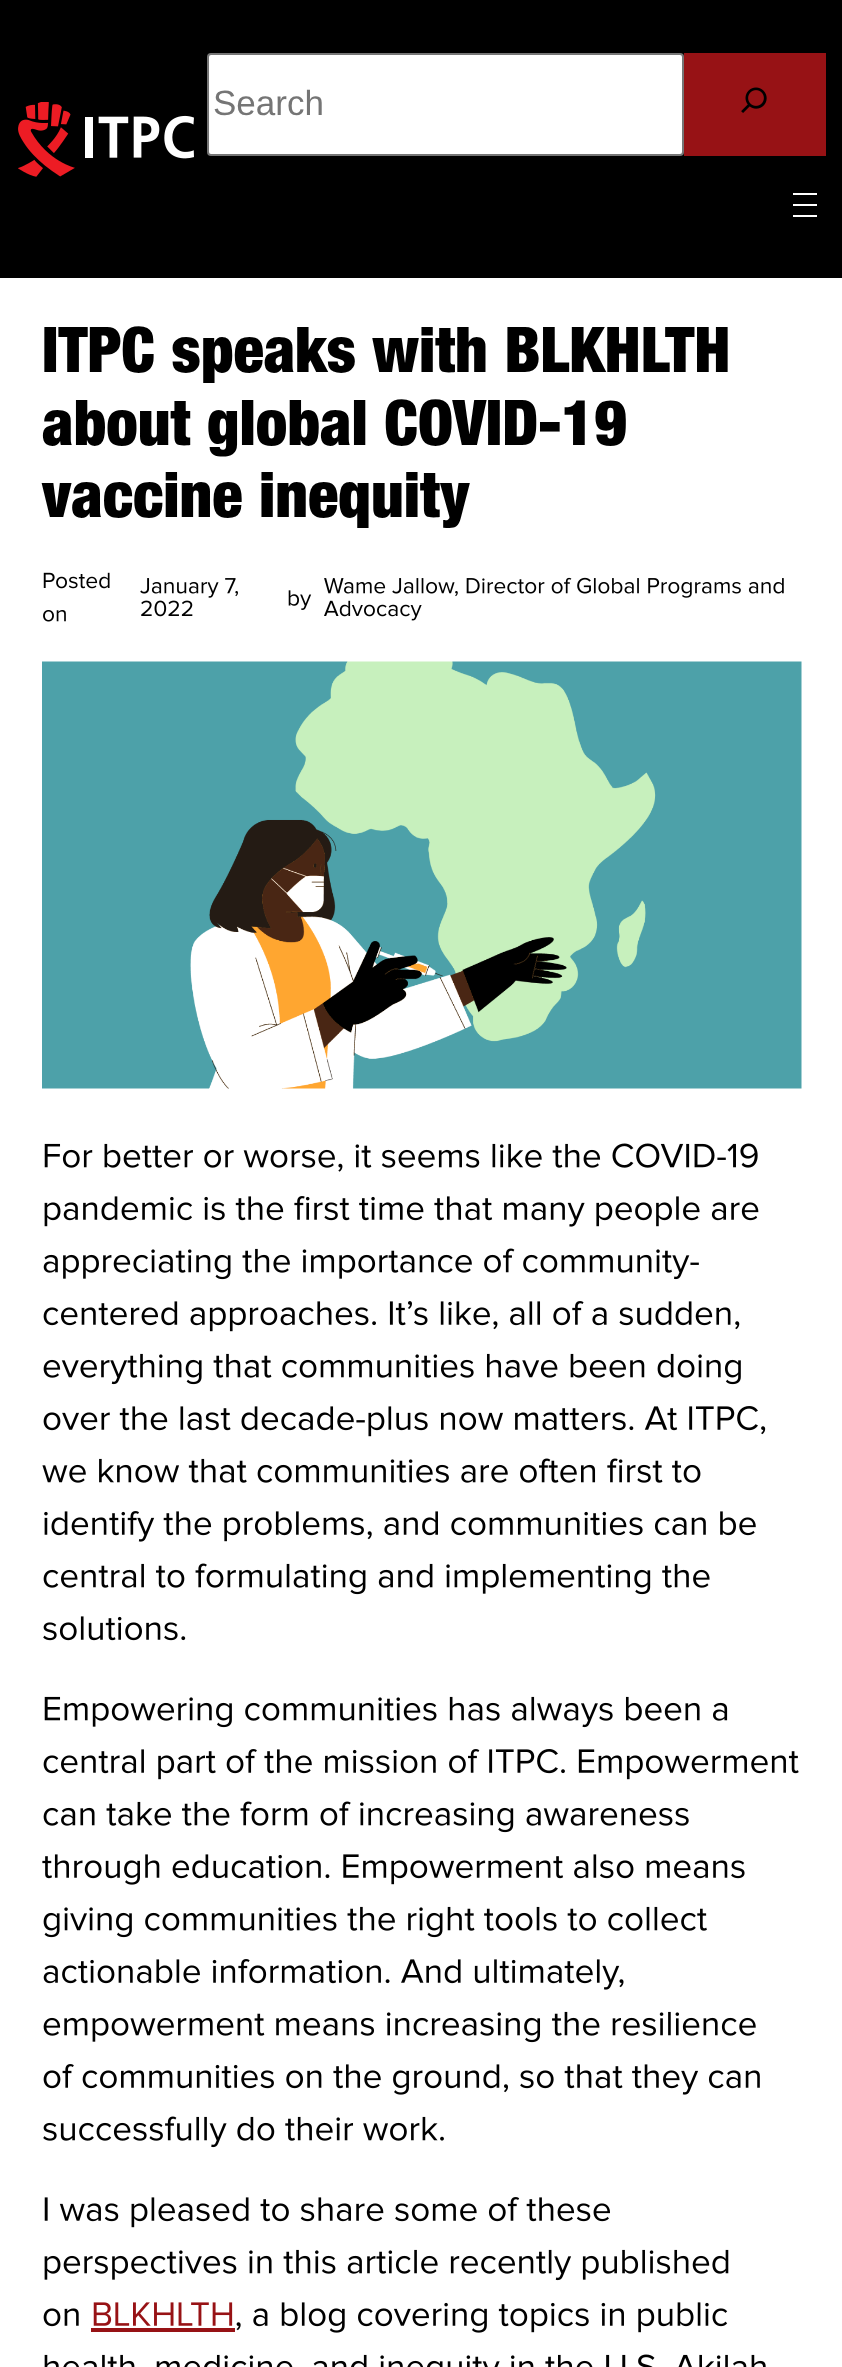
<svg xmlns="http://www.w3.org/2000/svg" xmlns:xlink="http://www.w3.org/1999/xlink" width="842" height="2367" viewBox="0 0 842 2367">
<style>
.cls-1{font:35px Liberation Sans;fill:#757575}
.cls-2{font:900 63px Helvetica Neue;fill:#000000}
</style>
<rect width="100%" height="100%" fill="#ffffff"/>
<rect fill="#000000" x="0" y="0" width="842" height="278"/>
<image xlink:href="image0.png" x="18" y="102" width="176" height="75"/>
<rect fill="#ffffff" stroke="#767676" stroke-width="2" x="208" y="54" width="475" height="101" rx="3"/>
<rect fill="#971215" x="684" y="53" width="142" height="103"/>
<image xlink:href="image1.png" x="741" y="87" width="26" height="26"/>
<rect fill="#ffffff" x="793" y="193" width="24" height="2"/>
<rect fill="#ffffff" x="793" y="204" width="24" height="2"/>
<rect fill="#ffffff" x="793" y="215" width="24" height="2"/>
<image xlink:href="image2.png" x="43" y="572" width="67" height="17"/>
<image xlink:href="image3.png" x="43" y="610" width="23" height="12"/>
<image xlink:href="image4.png" x="140" y="578" width="98" height="20"/>
<image xlink:href="image5.png" x="141" y="600" width="52" height="17"/>
<image xlink:href="image6.png" x="288" y="590" width="24" height="20"/>
<image xlink:href="image7.png" x="324" y="577" width="460" height="21"/>
<image xlink:href="image8.png" x="324" y="600" width="98" height="21"/>
<image xlink:href="image9.png" x="42" y="661" width="760" height="428"/>
<image xlink:href="image10.png" x="44" y="1143" width="714" height="29"/>
<image xlink:href="image11.png" x="44" y="1196" width="715" height="31"/>
<image xlink:href="image12.png" x="43" y="1248" width="656" height="32"/>
<image xlink:href="image13.png" x="43" y="1301" width="697" height="31"/>
<image xlink:href="image14.png" x="43" y="1353" width="698" height="32"/>
<image xlink:href="image15.png" x="43" y="1406" width="723" height="31"/>
<image xlink:href="image16.png" x="42" y="1458" width="659" height="25"/>
<image xlink:href="image17.png" x="44" y="1511" width="712" height="31"/>
<image xlink:href="image18.png" x="43" y="1563" width="667" height="32"/>
<image xlink:href="image19.png" x="43" y="1616" width="143" height="25"/>
<image xlink:href="image20.png" x="44" y="1696" width="684" height="32"/>
<image xlink:href="image21.png" x="43" y="1749" width="756" height="31"/>
<image xlink:href="image22.png" x="43" y="1801" width="646" height="32"/>
<image xlink:href="image23.png" x="42" y="1854" width="703" height="31"/>
<image xlink:href="image24.png" x="43" y="1906" width="664" height="32"/>
<image xlink:href="image25.png" x="43" y="1959" width="581" height="31"/>
<image xlink:href="image26.png" x="43" y="2011" width="713" height="32"/>
<image xlink:href="image27.png" x="43" y="2064" width="717" height="31"/>
<image xlink:href="image28.png" x="43" y="2116" width="401" height="32"/>
<image xlink:href="image29.png" x="44" y="2197" width="566" height="31"/>
<image xlink:href="image30.png" x="44" y="2249" width="685" height="32"/>
<image xlink:href="image31.png" x="43" y="2308" width="36" height="19"/>
<image xlink:href="image32.png" x="93" y="2302" width="140" height="24"/>
<image xlink:href="image33.png" x="236" y="2302" width="492" height="31"/>
<rect fill="#971215" x="91" y="2328" width="144" height="4"/>
<image xlink:href="image34.png" x="44" y="2354" width="722" height="13"/>
<text class="cls-1" x="213" y="115">Search</text>
<text class="cls-2"><tspan x="42" y="372">ITPC speaks with BLKHLTH</tspan><tspan x="42" y="445">about global COVID-19</tspan><tspan x="42" y="517">vaccine inequity</tspan></text>
</svg>
